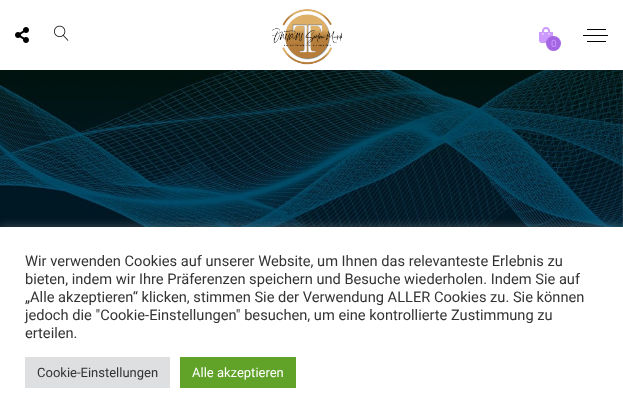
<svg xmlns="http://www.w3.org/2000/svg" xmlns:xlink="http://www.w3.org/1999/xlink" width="623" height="418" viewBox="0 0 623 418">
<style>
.cls-1{font:10px Roboto;fill:#cc99ff}
.cls-2{font:14.65px Roboto;fill:#333333}
.cls-3{font:13px Roboto;fill:#333333}
.cls-4{font:13px Roboto;fill:#ffffff}
</style>
<rect width="100%" height="100%" fill="#ffffff"/>
<image xlink:href="image0.png" x="0" y="70" width="623" height="157"/>
<image xlink:href="image1.png" x="15" y="27" width="14" height="16"/>
<image xlink:href="image2.png" x="54" y="25" width="15" height="16"/>
<image xlink:href="image3.png" x="272" y="9" width="70" height="56"/>
<rect fill="#000000" x="587" y="29" width="19" height="1"/>
<rect fill="#000000" x="583" y="35" width="25" height="1"/>
<rect fill="#000000" x="587" y="41" width="19" height="1"/>
<image xlink:href="image4.png" x="539" y="27" width="14" height="16"/>
<circle fill="#a466e2" cx="553.5" cy="43.5" r="7.5"/>
<rect fill="#acabab" fill-opacity="0.3" filter="blur(5px)" x="0" y="226" width="623" height="191"/>
<rect fill="#ffffff" x="0" y="227" width="623" height="191"/>
<rect fill="#dedfe0" x="25" y="357" width="145" height="31"/>
<rect fill="#61a229" x="180" y="357" width="116" height="31"/>
<text class="cls-1" x="551" y="47">0</text>
<text class="cls-2"><tspan x="25" y="266">Wir verwenden Cookies auf unserer Website, um Ihnen das relevanteste Erlebnis zu</tspan><tspan x="25" y="284">bieten, indem wir Ihre Präferenzen speichern und Besuche wiederholen. Indem Sie auf</tspan><tspan x="25" y="302">„Alle akzeptieren“ klicken, stimmen Sie der Verwendung ALLER Cookies zu. Sie können</tspan><tspan x="25" y="320">jedoch die "Cookie-Einstellungen" besuchen, um eine kontrollierte Zustimmung zu</tspan><tspan x="25" y="338">erteilen.</tspan></text>
<text class="cls-3" x="37" y="377">Cookie-Einstellungen</text>
<text class="cls-4" x="192" y="377">Alle akzeptieren</text>
</svg>
